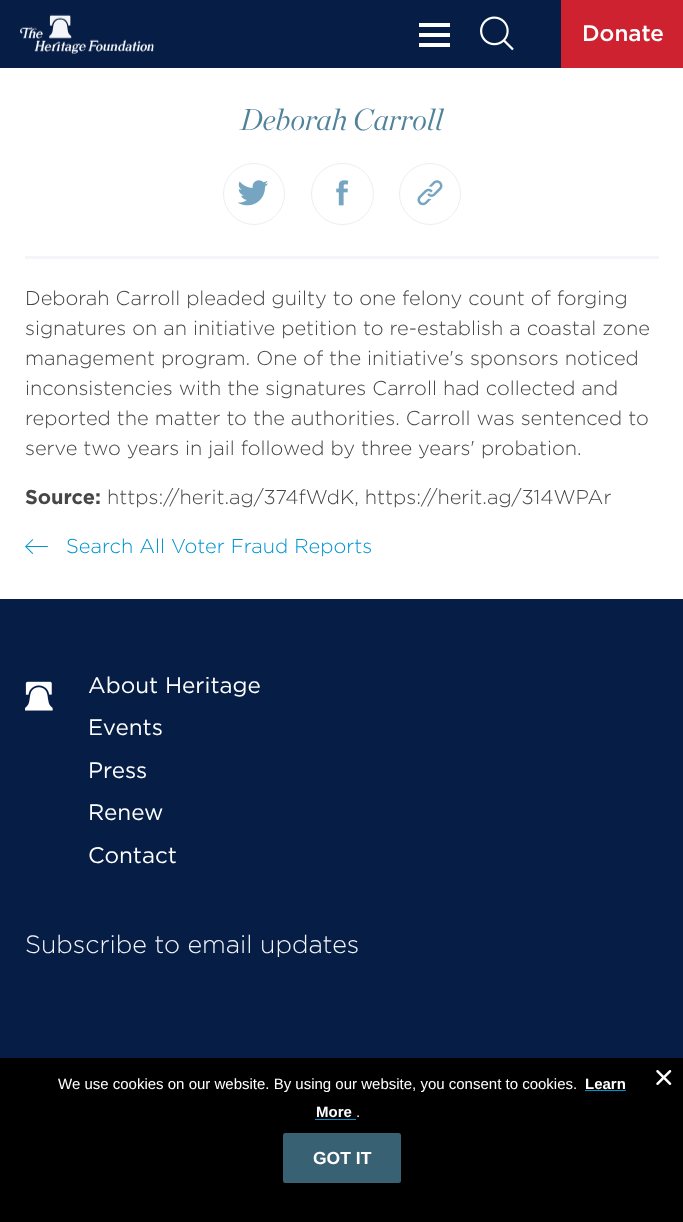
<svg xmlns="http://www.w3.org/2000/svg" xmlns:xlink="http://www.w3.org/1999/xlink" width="683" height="1222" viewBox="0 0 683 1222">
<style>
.cls-1{font:500 22.5px Gotham;fill:#ffffff}
.cls-2{font:italic 300 30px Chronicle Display;fill:#508399}
.cls-3{font:300 20px Gotham;fill:#464646}
.cls-4{font:bold 20px Gotham;fill:#464646}
.cls-5{font:300 20px Gotham;fill:#0093d0}
.cls-6{font:22.5px Gotham;fill:#ffffff}
.cls-7{font:300 25px Gotham;fill:#f3f5f8}
.cls-8{font:15px Liberation Sans;fill:#ffffff}
.cls-9{font:bold 15px Liberation Sans;fill:#ffffff}
.cls-10{font:bold 17.5px Liberation Sans;fill:#ffffff}
</style>
<rect width="100%" height="100%" fill="#ffffff"/>
<rect fill="#061d46" x="0" y="0" width="561" height="68"/>
<image xlink:href="image0.png" x="20" y="14" width="134" height="40"/>
<rect fill="#ffffff" x="419" y="23" width="31" height="4"/>
<rect fill="#ffffff" x="419" y="33" width="31" height="4"/>
<rect fill="#ffffff" x="419" y="43" width="31" height="4"/>
<image xlink:href="image1.png" x="480" y="16" width="34" height="35"/>
<rect fill="#ce2231" x="561" y="0" width="122" height="68"/>
<rect fill="#f3f5f8" x="25" y="256" width="634" height="3"/>
<circle fill="none" stroke="#ebeff3" cx="254" cy="194" r="30.5"/>
<image xlink:href="image2.png" x="237" y="180" width="31" height="26"/>
<rect fill="none" stroke="#ebeff3" x="311.5" y="163.5" width="62" height="61" rx="30.5"/>
<image xlink:href="image3.png" x="336" y="180" width="13" height="26"/>
<circle fill="none" stroke="#ebeff3" cx="430" cy="194" r="30.5"/>
<image xlink:href="image4.png" x="417" y="180" width="26" height="26"/>
<image xlink:href="image5.png" x="25" y="539" width="23" height="15"/>
<rect fill="#061d46" x="0" y="599" width="683" height="459"/>
<image xlink:href="image6.png" x="25" y="681" width="28" height="30"/>
<rect fill="#000000" x="0" y="1058" width="683" height="164"/>
<rect fill="#0093d0" x="585" y="1090" width="41" height="1"/>
<rect fill="#0093d0" x="315" y="1119" width="41" height="1"/>
<rect fill="#386274" x="283" y="1133" width="118" height="50" rx="2.5"/>
<image xlink:href="image7.png" x="656" y="1070" width="16" height="15"/>
<text class="cls-1" x="582" y="41">Donate</text>
<text class="cls-2" x="240" y="130">Deborah Carroll</text>
<text class="cls-3"><tspan x="25" y="305">Deborah Carroll pleaded guilty to one felony count of forging</tspan><tspan x="25" y="335">signatures on an initiative petition to re-establish a coastal zone</tspan><tspan x="25" y="365">management program. One of the initiative's sponsors noticed</tspan><tspan x="25" y="395">inconsistencies with the signatures Carroll had collected and</tspan><tspan x="25" y="425">reported the matter to the authorities. Carroll was sentenced to</tspan><tspan x="25" y="455">serve two years in jail followed by three years' probation.</tspan></text>
<text class="cls-4" x="25" y="504">Source:</text>
<text class="cls-3" x="107" y="504">https://herit.ag/374fWdK, https://herit.ag/314WPAr</text>
<text class="cls-5" x="66" y="553">Search All Voter Fraud Reports</text>
<text class="cls-6"><tspan x="88" y="693">About Heritage</tspan><tspan x="88" y="735">Events</tspan><tspan x="88" y="778">Press</tspan><tspan x="88" y="820">Renew</tspan><tspan x="88" y="863">Contact</tspan></text>
<text class="cls-7" x="25" y="953">Subscribe to email updates</text>
<text class="cls-8" x="58" y="1089">We use cookies on our website. By using our website, you consent to cookies.</text>
<text class="cls-9" x="585" y="1089">Learn</text>
<text class="cls-9" x="316" y="1117">More</text>
<text class="cls-8" x="356" y="1117">.</text>
<text class="cls-10" x="313" y="1164">GOT IT</text>
</svg>
